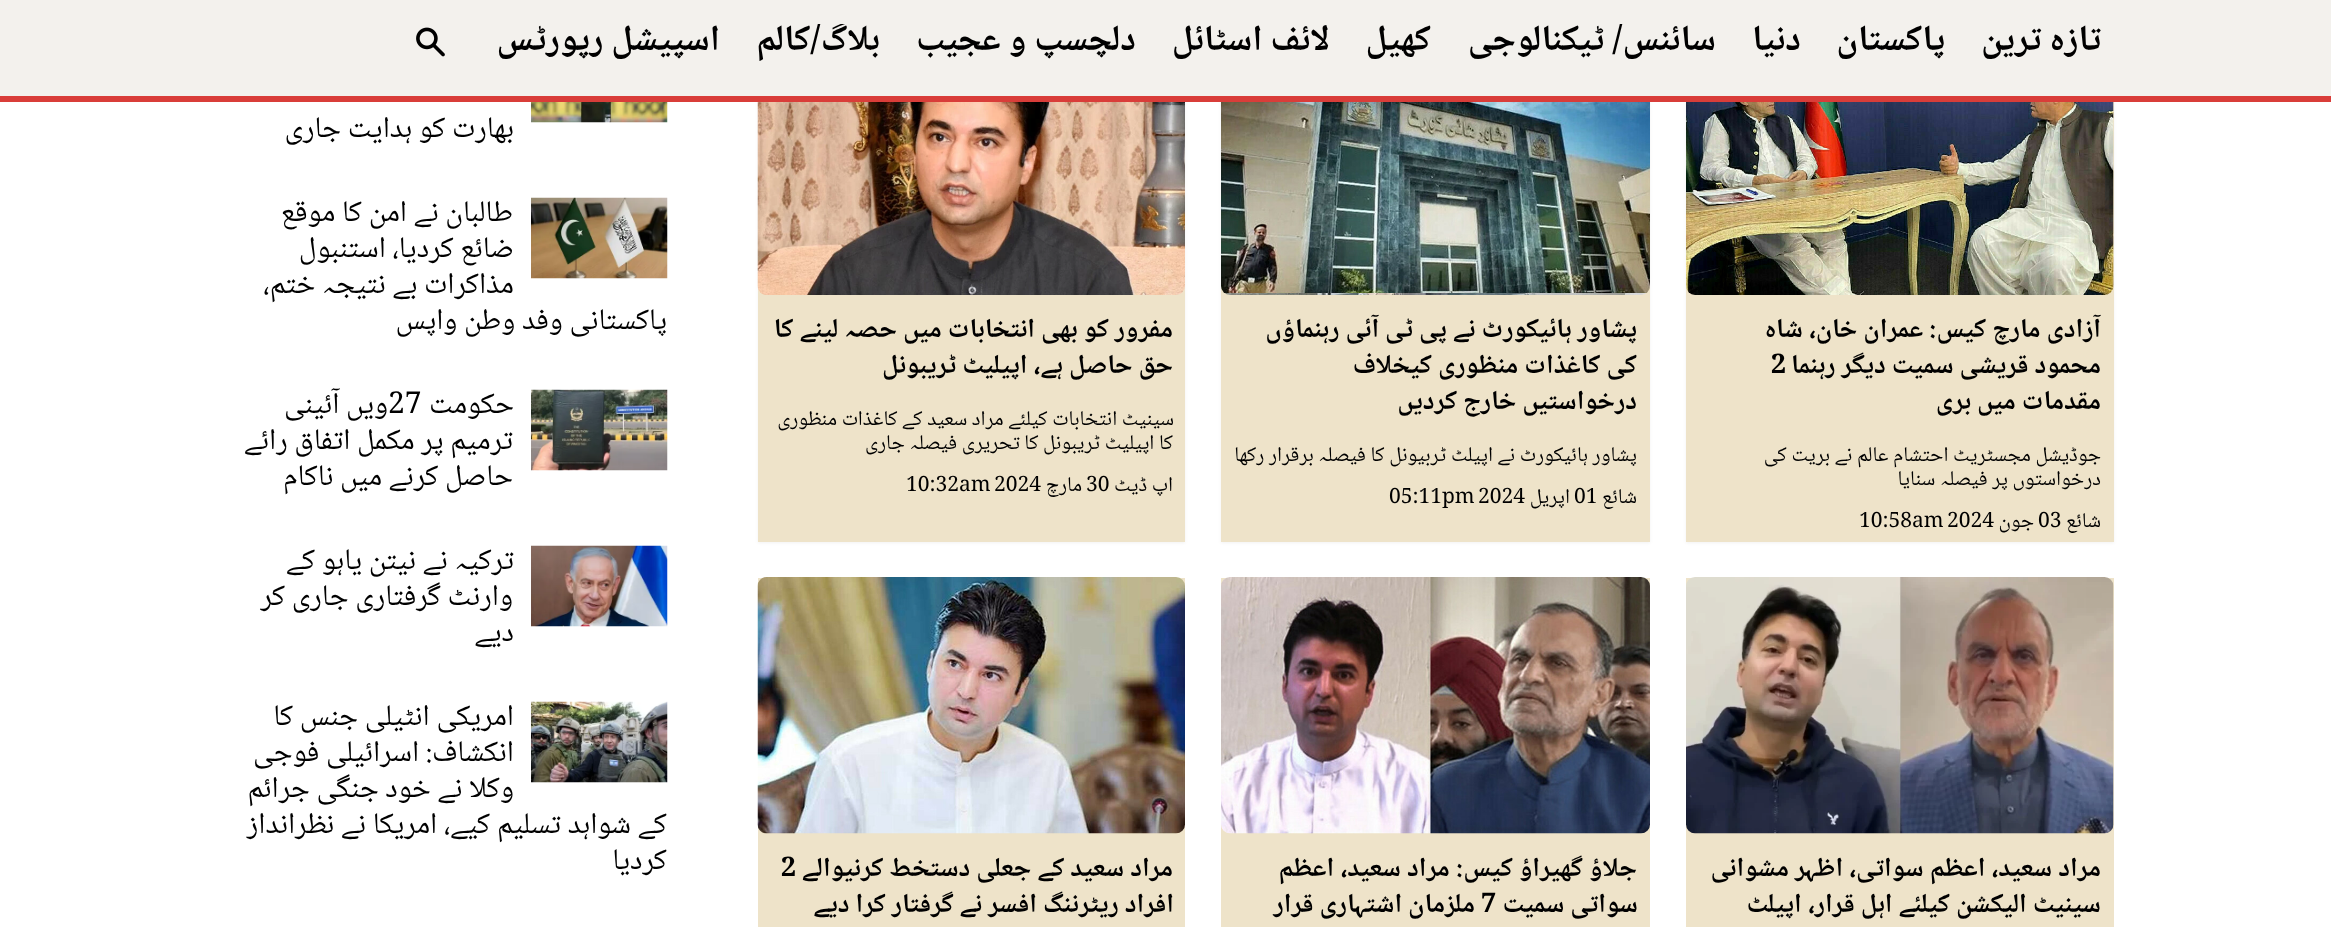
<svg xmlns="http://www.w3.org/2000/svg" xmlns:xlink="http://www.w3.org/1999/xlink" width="2331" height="927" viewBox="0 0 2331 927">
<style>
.cls-1{font:bold 36px Noto Naskh Arabic;direction:rtl;fill:#000000}
.cls-2{font:bold 27px Noto Naskh Arabic;direction:rtl;fill:#000000}
.cls-3{font:bold 27px Noto Naskh Arabic;fill:#000000}
.cls-4{font:21px Noto Naskh Arabic;direction:rtl;fill:#000000}
.cls-5{font:21px Noto Naskh Arabic;fill:#000000}
.cls-6{font:30px Noto Naskh Arabic;direction:rtl;fill:#000000}
.cls-7{font:30px Noto Naskh Arabic;fill:#000000}
</style>
<defs>
<clipPath id="clip1"><rect x="230" y="24" width="1896" height="48"/></clipPath>
</defs>
<rect width="100%" height="100%" fill="#ffffff"/>
<rect fill="#000000" fill-opacity="0.05" filter="blur(1.5px)" x="1686" y="39" width="428" height="504"/>
<rect fill="#000000" fill-opacity="0.05" filter="blur(1.5px)" x="1221" y="39" width="429" height="504"/>
<rect fill="#000000" fill-opacity="0.05" filter="blur(1.5px)" x="758" y="39" width="427" height="504"/>
<rect fill="#f3f1ed" x="0" y="0" width="2331" height="96"/>
<rect fill="#d93d39" x="0" y="96" width="2331" height="6"/>
<image xlink:href="image0.png" x="416" y="27" width="29" height="30"/>
<rect fill="#eee3c9" x="1686" y="102" width="428" height="440"/>
<image xlink:href="image1.png" x="1686" y="102" width="428" height="193"/>
<rect fill="#eee3c9" x="1221" y="286" width="429" height="256"/>
<image xlink:href="image2.png" x="1221" y="102" width="429" height="193"/>
<rect fill="#eee3c9" x="758" y="286" width="427" height="256"/>
<image xlink:href="image3.png" x="757" y="102" width="428" height="193"/>
<rect fill="#eee3c9" x="1686" y="578" width="428" height="349"/>
<image xlink:href="image4.png" x="1686" y="577" width="428" height="257"/>
<rect fill="#eee3c9" x="1221" y="578" width="429" height="349"/>
<image xlink:href="image5.png" x="1221" y="577" width="429" height="257"/>
<rect fill="#eee3c9" x="758" y="578" width="427" height="349"/>
<image xlink:href="image6.png" x="757" y="577" width="428" height="257"/>
<image xlink:href="image7.png" x="531" y="102" width="137" height="21"/>
<image xlink:href="image8.png" x="531" y="197" width="137" height="82"/>
<image xlink:href="image9.png" x="531" y="389" width="137" height="82"/>
<image xlink:href="image10.png" x="531" y="545" width="137" height="82"/>
<image xlink:href="image11.png" x="531" y="701" width="137" height="82"/>
<text class="cls-1" x="2101" y="50">تازہ ترین</text>
<text class="cls-1" x="1945" y="50">پاکستان</text>
<text class="cls-1" x="1801" y="50">دنیا</text>
<g clip-path="url(#clip1)">
<text class="cls-1" x="1716" y="50">سائنس/ ٹیکنالوجی</text>
</g>
<text class="cls-1" x="1431" y="50">کھیل</text>
<text class="cls-1" x="1330" y="50">لائف اسٹائل</text>
<text class="cls-1" x="1136" y="50">دلچسپ و عجیب</text>
<g clip-path="url(#clip1)">
<text class="cls-1" x="880" y="50">بلاگ/کالم</text>
</g>
<text class="cls-1" x="720" y="50">اسپیشل رپورٹس</text>
<text class="cls-2"><tspan x="2101" y="337">آزادی مارچ کیس: عمران خان، شاہ</tspan><tspan x="2101" y="373">محمود قریشی سمیت دیگر رہنما</tspan></text>
<text class="cls-3" x="1771" y="373">2</text>
<text class="cls-2" x="2101" y="409">مقدمات میں بری</text>
<text class="cls-4"><tspan x="2101" y="461">جوڈیشل مجسٹریٹ احتشام عالم نے بریت کی</tspan><tspan x="2101" y="485">درخواستوں پر فیصلہ سنایا</tspan></text>
<text class="cls-4" x="2101" y="527">شائع</text>
<text class="cls-5" x="2038" y="527">03</text>
<text class="cls-4" x="2034" y="527">جون</text>
<text class="cls-5" x="1947" y="527">2024</text>
<text class="cls-5" x="1859" y="527">10:58am</text>
<text class="cls-2"><tspan x="1637" y="337">پشاور ہائیکورٹ نے پی ٹی آئی رہنماؤں</tspan><tspan x="1637" y="373">کی کاغذات منظوری کیخلاف</tspan><tspan x="1637" y="409">درخواستیں خارج کردیں</tspan></text>
<text class="cls-4" x="1637" y="461">پشاور ہائیکورٹ نے اپیلٹ ٹربیونل کا فیصلہ برقرار رکھا</text>
<text class="cls-4" x="1637" y="503">شائع</text>
<text class="cls-5" x="1574" y="503">01</text>
<text class="cls-4" x="1570" y="503">اپريل</text>
<text class="cls-5" x="1478" y="503">2024</text>
<text class="cls-5" x="1389" y="503">05:11pm</text>
<text class="cls-2"><tspan x="1173" y="337">مفرور کو بھی انتخابات میں حصہ لینے کا</tspan><tspan x="1173" y="373">حق حاصل ہے، اپیلیٹ ٹریبونل</tspan></text>
<text class="cls-4" x="1174" y="425">سینیٹ انتخابات کیلئے مراد سعید کے کاغذات منظوری</text>
<text class="cls-4" x="1173" y="449">کا اپیلیٹ ٹریبونل کا</text>
<text class="cls-4" x="1020" y="449">تحریری فیصلہ جاری</text>
<text class="cls-4" x="1173" y="491">اپ ڈیٹ</text>
<text class="cls-5" x="1086" y="491">30</text>
<text class="cls-4" x="1082" y="491">مارچ</text>
<text class="cls-5" x="994" y="491">2024</text>
<text class="cls-5" x="906" y="491">10:32am</text>
<text class="cls-2"><tspan x="2101" y="876">مراد سعید، اعظم سواتی، اظہر مشوانی</tspan><tspan x="2101" y="912">سینیٹ الیکشن کیلئے اہل قرار، اپیلٹ</tspan></text>
<text class="cls-2" x="1637" y="876">جلاؤ گھیراؤ کیس: مراد سعید، اعظم</text>
<text class="cls-2" x="1638" y="912">سواتی سمیت</text>
<text class="cls-3" x="1481" y="912">7</text>
<text class="cls-2" x="1475" y="912">ملزمان اشتہاری قرار</text>
<text class="cls-2" x="1173" y="876">مراد سعید کے جعلی دستخط کرنیوالے</text>
<text class="cls-3" x="781" y="876">2</text>
<text class="cls-2" x="1174" y="912">افراد ریٹرننگ افسر نے گرفتار کرا دیے</text>
<text class="cls-6" x="514" y="137">بھارت کو ہدایت جاری</text>
<text class="cls-6" x="513" y="221">طالبان نے امن کا موقع</text>
<text class="cls-6"><tspan x="514" y="257">ضائع کردیا، استنبول</tspan><tspan x="514" y="293">مذاکرات بے نتیجہ ختم،</tspan></text>
<text class="cls-6" x="667" y="329">پاکستانی وفد وطن واپس</text>
<text class="cls-6" x="514" y="413">حکومت</text>
<text class="cls-7" x="388" y="413">27</text>
<text class="cls-6" x="388" y="413">ویں آئینی</text>
<text class="cls-6"><tspan x="513" y="449">ترمیم پر مکمل اتفاق رائے</tspan><tspan x="513" y="485">حاصل کرنے میں ناکام</tspan></text>
<text class="cls-6" x="514" y="569">ترکیہ نے نیتن یاہو کے</text>
<text class="cls-6" x="513" y="605">وارنٹ گرفتاری جاری کر</text>
<text class="cls-6" x="514" y="641">دیے</text>
<text class="cls-6"><tspan x="514" y="725">امریکی انٹیلی جنس کا</tspan><tspan x="514" y="761">انکشاف: اسرائیلی فوجی</tspan><tspan x="514" y="797">وکلا نے خود جنگی جرائم</tspan></text>
<text class="cls-6"><tspan x="667" y="833">کے شواہد تسلیم کیے، امریکا نے نظرانداز</tspan><tspan x="667" y="869">کردیا</tspan></text>
</svg>
